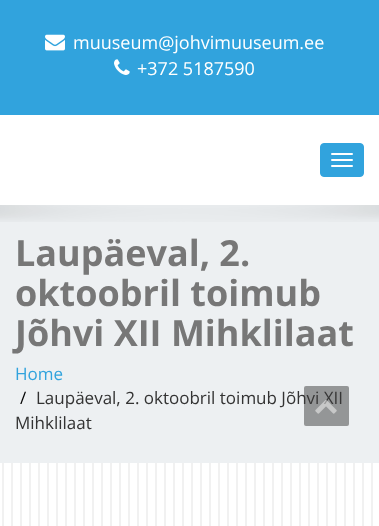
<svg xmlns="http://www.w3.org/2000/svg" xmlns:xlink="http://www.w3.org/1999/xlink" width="379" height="526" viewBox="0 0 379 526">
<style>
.cls-1{font:18px Open Sans;fill:#ffffff}
.cls-2{font:bold 36px Open Sans;fill:#777777}
.cls-3{font:17px Open Sans;fill:#31a3dd}
.cls-4{font:17px Open Sans;fill:#000000}
.cls-5{font:17px Open Sans;fill:#333333}
</style>
<rect width="100%" height="100%" fill="#ffffff"/>
<image xlink:href="image0.png" x="0" y="463" width="379" height="63"/>
<rect fill="#31a3dd" x="0" y="0" width="379" height="115"/>
<image xlink:href="image1.png" x="45" y="34" width="20" height="17"/>
<image xlink:href="image2.png" x="114" y="59" width="16" height="16"/>
<rect fill="#31a3dd" stroke="#31a3dd" x="320.5" y="143.5" width="43" height="33" rx="3.5"/>
<rect fill="#ffffff" x="331" y="153" width="22" height="2" rx="1"/>
<rect fill="#ffffff" x="331" y="159" width="22" height="2" rx="1"/>
<rect fill="#ffffff" x="331" y="165" width="22" height="2" rx="1"/>
<rect fill="#edf0f2" x="0" y="205" width="379" height="258"/>
<image xlink:href="image3.png" x="0" y="205" width="379" height="17"/>
<text class="cls-1" x="73" y="49">muuseum@johvimuuseum.ee</text>
<text class="cls-1" x="137" y="75">+372 5187590</text>
<text class="cls-2"><tspan x="15" y="266">Laupäeval, 2.</tspan><tspan x="15" y="306">oktoobril toimub</tspan><tspan x="15" y="346">Jõhvi XII Mihklilaat</tspan></text>
<text class="cls-3" x="15" y="380">Home</text>
<text class="cls-4" x="20" y="404">/</text>
<text class="cls-5" x="36" y="404">Laupäeval, 2. oktoobril toimub Jõhvi XII</text>
<text class="cls-5" x="15" y="429">Mihklilaat</text>
<rect fill="#3b3b3b" fill-opacity="0.5" x="304" y="386" width="45" height="40" rx="2"/>
<image xlink:href="image4.png" x="315" y="400" width="22" height="14"/>
</svg>
